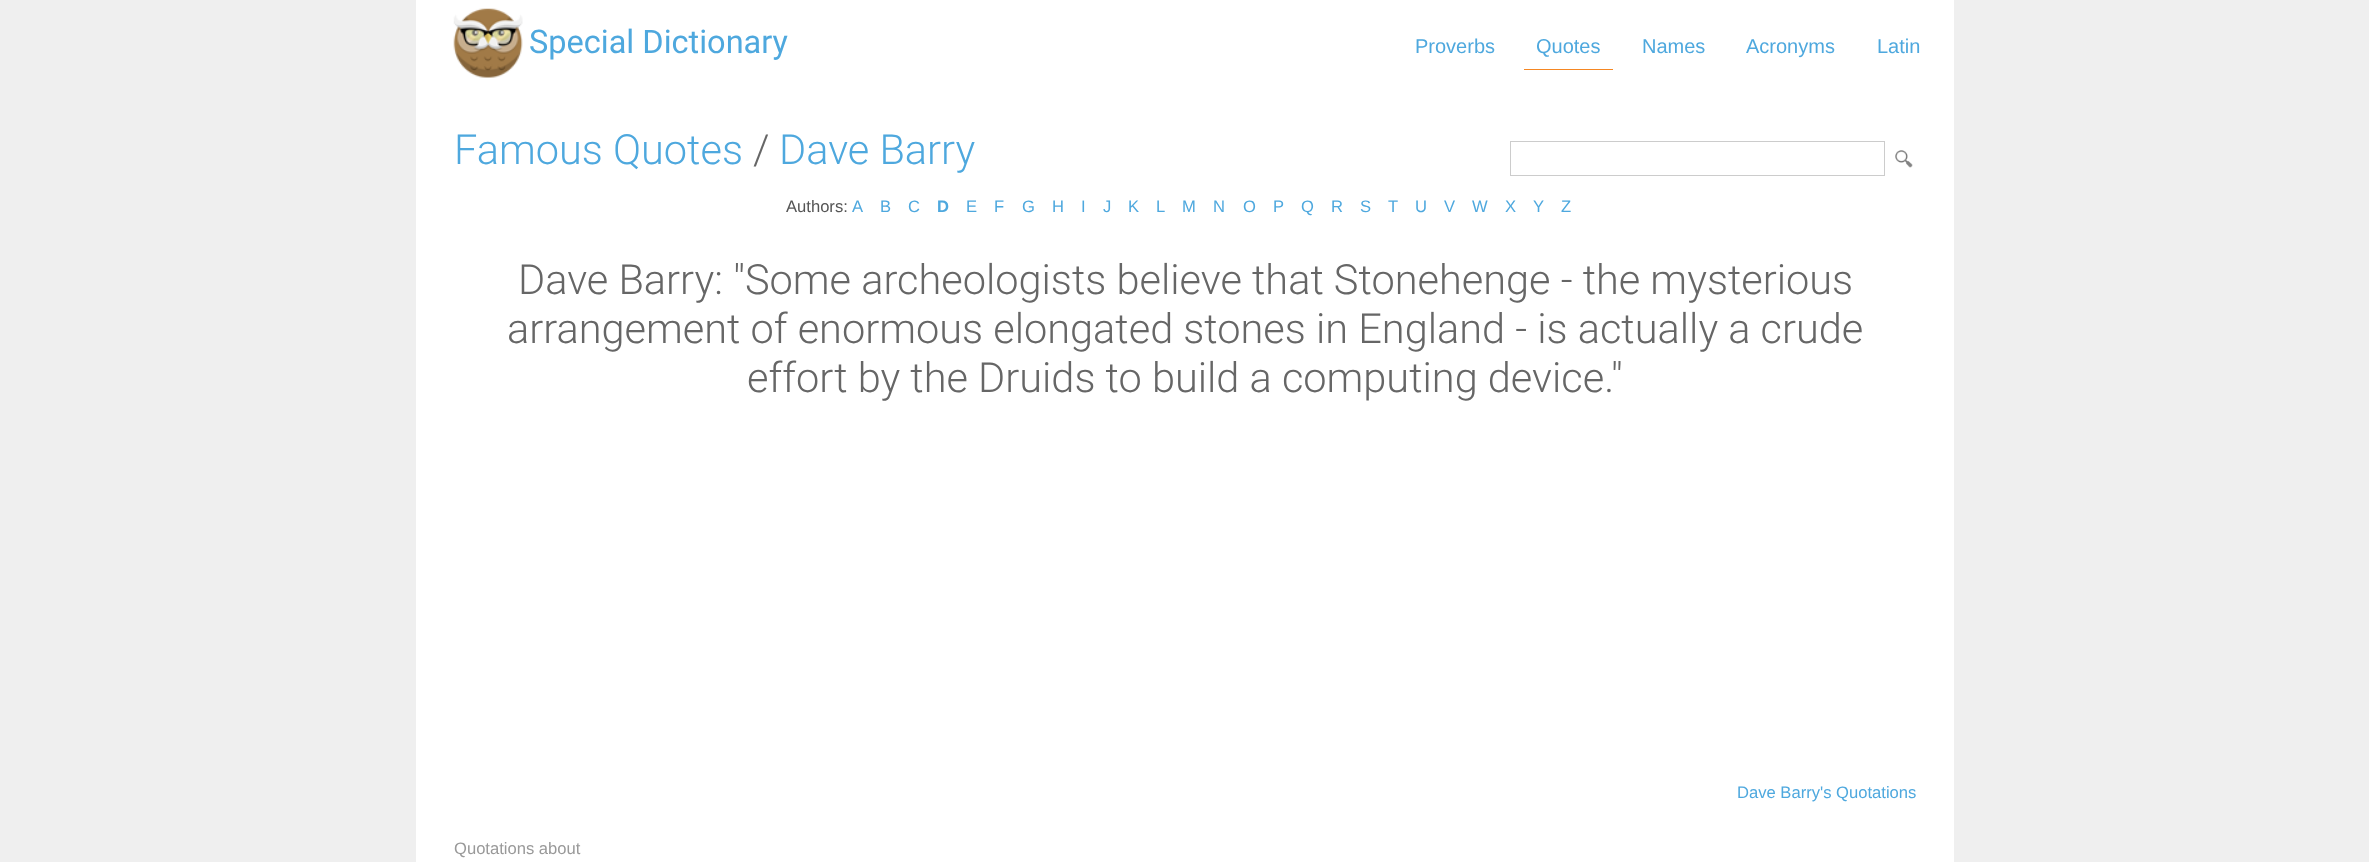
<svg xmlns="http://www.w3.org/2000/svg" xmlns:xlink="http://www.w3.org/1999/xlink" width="2369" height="862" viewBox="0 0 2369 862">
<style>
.cls-1{font:32.5px Roboto;fill:#4ea8de}
.cls-2{font:20px Liberation Sans;fill:#4ea8de}
.cls-3{font:300 41.5px Roboto;fill:#4ea8de}
.cls-4{font:300 41.5px Roboto;fill:#666666}
.cls-5{font:16.6px Liberation Sans;fill:#555555}
.cls-6{font:16.6px Liberation Sans;fill:#4ea8de}
.cls-7{font:bold 16.6px Liberation Sans;fill:#4ea8de}
.cls-8{font:16.6px Liberation Sans;fill:#999999}
</style>
<rect width="100%" height="100%" fill="#efefef"/>
<rect fill="#cccccc" filter="blur(0.5px)" x="416" y="0" width="1538" height="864"/>
<rect fill="#ffffff" x="416" y="0" width="1538" height="862"/>
<image xlink:href="image0.png" x="453" y="8" width="70" height="70"/>
<rect fill="#f58723" x="1524" y="69" width="89" height="1"/>
<rect fill="none" stroke="#cccccc" x="1510.5" y="141.5" width="374" height="34"/>
<image xlink:href="image1.png" x="1895" y="150" width="18" height="18"/>
<text class="cls-1" x="529" y="53">Special Dictionary</text>
<text class="cls-2" x="1415" y="53">Proverbs</text>
<text class="cls-2" x="1536" y="53">Quotes</text>
<text class="cls-2" x="1642" y="53">Names</text>
<text class="cls-2" x="1746" y="53">Acronyms</text>
<text class="cls-2" x="1877" y="53">Latin</text>
<text class="cls-3" x="454" y="164">Famous Quotes</text>
<text class="cls-4" x="753" y="164">/</text>
<text class="cls-3" x="779" y="164">Dave Barry</text>
<text class="cls-5" x="786" y="212">Authors:</text>
<text class="cls-6" x="852" y="212">A</text>
<text class="cls-6" x="880" y="212">B</text>
<text class="cls-6" x="908" y="212">C</text>
<text class="cls-7" x="937" y="212">D</text>
<text class="cls-6" x="966" y="212">E</text>
<text class="cls-6" x="994" y="212">F</text>
<text class="cls-6" x="1022" y="212">G</text>
<text class="cls-6" x="1052" y="212">H</text>
<text class="cls-6" x="1081" y="212">I</text>
<text class="cls-6" x="1103" y="212">J</text>
<text class="cls-6" x="1128" y="212">K</text>
<text class="cls-6" x="1156" y="212">L</text>
<text class="cls-6" x="1182" y="212">M</text>
<text class="cls-6" x="1213" y="212">N</text>
<text class="cls-6" x="1243" y="212">O</text>
<text class="cls-6" x="1273" y="212">P</text>
<text class="cls-6" x="1301" y="212">Q</text>
<text class="cls-6" x="1331" y="212">R</text>
<text class="cls-6" x="1360" y="212">S</text>
<text class="cls-6" x="1388" y="212">T</text>
<text class="cls-6" x="1415" y="212">U</text>
<text class="cls-6" x="1444" y="212">V</text>
<text class="cls-6" x="1472" y="212">W</text>
<text class="cls-6" x="1505" y="212">X</text>
<text class="cls-6" x="1533" y="212">Y</text>
<text class="cls-6" x="1561" y="212">Z</text>
<text class="cls-4" x="518" y="294">Dave Barry: "Some archeologists believe that Stonehenge - the mysterious</text>
<text class="cls-4" x="507" y="343">arrangement of enormous elongated stones in England - is actually a crude</text>
<text class="cls-4" x="747" y="392">effort by the Druids to build a computing device."</text>
<text class="cls-6" x="1737" y="798">Dave Barry's Quotations</text>
<text class="cls-8" x="454" y="854">Quotations about</text>
</svg>
